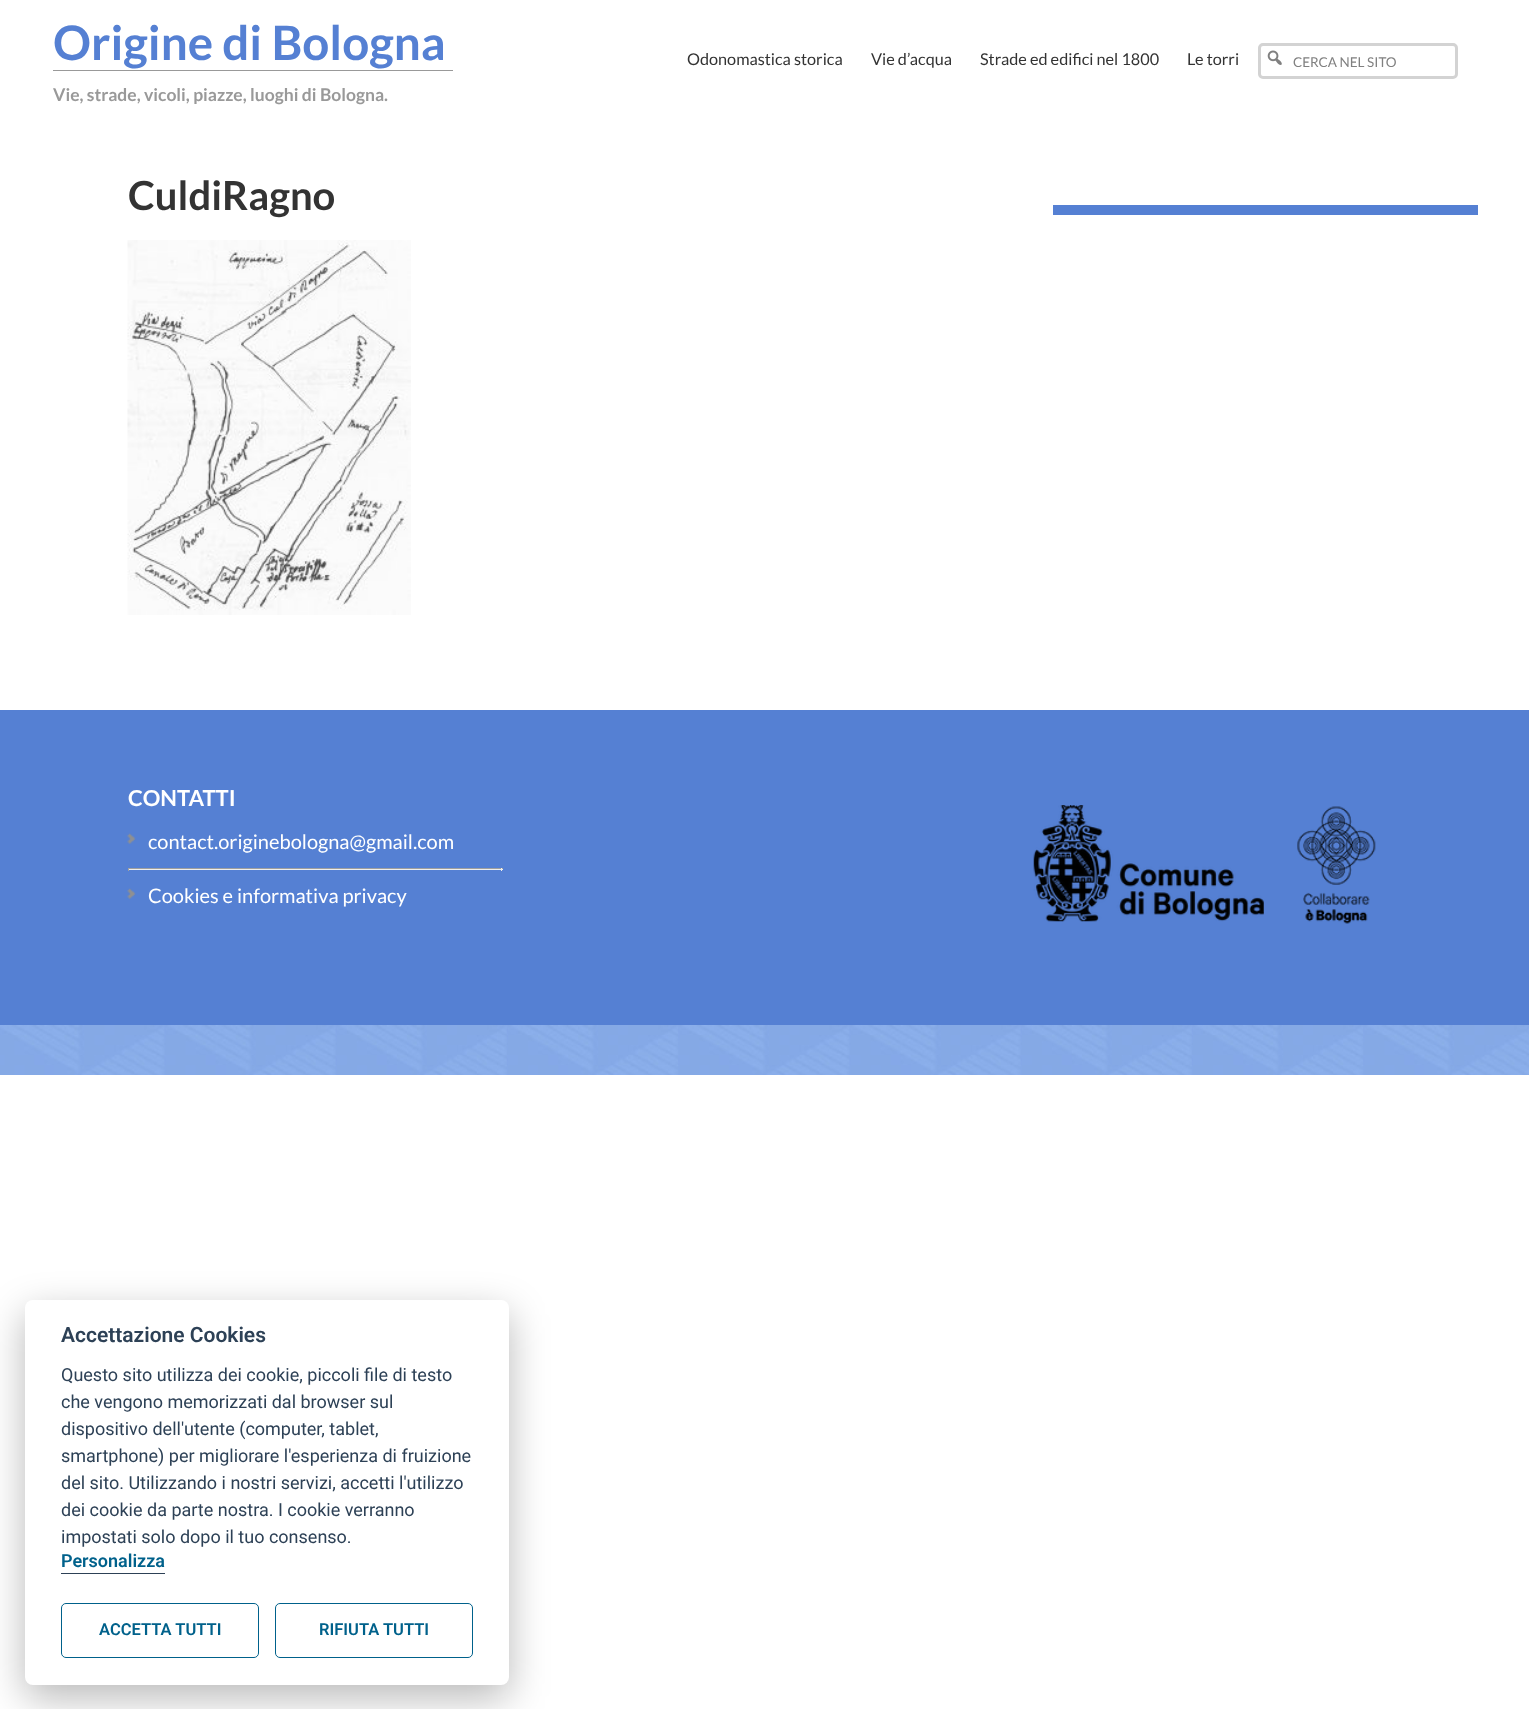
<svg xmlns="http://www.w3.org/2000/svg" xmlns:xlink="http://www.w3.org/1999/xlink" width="1529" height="1709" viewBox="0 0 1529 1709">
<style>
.cls-1{font:bold 47.5px Lato;fill:#5580d3}
.cls-2{font:bold 17.5px Lato;fill:#999999}
.cls-3{font:16.25px Lato;fill:#333333}
.cls-4{font:13.5px Lato;fill:#808080}
.cls-5{font:bold 40px Lato;fill:#333333}
.cls-6{font:bold 22px Lato;fill:#ffffff}
.cls-7{font:20px Lato;fill:#ffffff}
.cls-8{font:600 21px Roboto;fill:#2d4156}
.cls-9{font:18px Roboto;fill:#2d4156}
.cls-10{font:600 18px Roboto;fill:#00618b}
.cls-11{font:600 16.5px Roboto;fill:#00618b}
</style>
<rect width="100%" height="100%" fill="#ffffff"/>
<rect fill="#999999" x="53" y="70" width="400" height="1"/>
<rect fill="none" stroke="#d3d3d3" stroke-width="3" x="1259.5" y="44.5" width="197" height="33" rx="3.5"/>
<image xlink:href="image0.png" x="1267" y="50" width="15" height="15"/>
<image xlink:href="image1.png" x="127" y="240" width="284" height="375"/>
<rect fill="#5580d3" x="1053" y="205" width="425" height="10"/>
<rect fill="#5580d3" x="0" y="710" width="1529" height="315"/>
<image xlink:href="image2.png" x="127" y="833" width="9" height="11"/>
<rect fill="#9f9f9f" x="128" y="868" width="375" height="1"/>
<rect fill="#eeeeee" x="501" y="868" width="1" height="3"/>
<rect fill="#eeeeee" x="128" y="869" width="375" height="1"/>
<rect fill="#9f9f9f" x="128" y="868" width="1" height="3"/>
<image xlink:href="image2.png" x="127" y="888" width="9" height="11"/>
<image xlink:href="image3.png" x="1033" y="805" width="231" height="117"/>
<image xlink:href="image4.png" x="1297" y="806" width="79" height="118"/>
<image xlink:href="image5.png" x="0" y="1025" width="1529" height="50"/>
<rect fill="#020203" fill-opacity="0.28" filter="blur(19px)" x="25" y="1313" width="484" height="385" rx="8"/>
<rect fill="#ffffff" x="25" y="1300" width="484" height="385" rx="8"/>
<rect fill="#2d4156" x="61" y="1573" width="104" height="1"/>
<rect fill="none" stroke="#00618b" x="61.5" y="1603.5" width="197" height="54" rx="4.5"/>
<rect fill="none" stroke="#00618b" x="275.5" y="1603.5" width="197" height="54" rx="4.5"/>
<text class="cls-1" x="53" y="60">Origine di Bologna</text>
<text class="cls-2" x="53" y="101">Vie, strade, vicoli, piazze, luoghi di Bologna.</text>
<text class="cls-3" x="687" y="65">Odonomastica storica</text>
<text class="cls-3" x="871" y="65">Vie d’acqua</text>
<text class="cls-3" x="980" y="65">Strade ed edifici nel 1800</text>
<text class="cls-3" x="1187" y="65">Le torri</text>
<text class="cls-4" x="1293" y="67">CERCA NEL SITO</text>
<text class="cls-5" x="128" y="210">CuldiRagno</text>
<text class="cls-6" x="128" y="806">CONTATTI</text>
<text class="cls-7" x="148" y="849">contact.originebologna@gmail.com</text>
<text class="cls-7" x="148" y="903">Cookies e informativa privacy</text>
<text class="cls-8" x="61" y="1342">Accettazione Cookies</text>
<text class="cls-9"><tspan x="61" y="1381">Questo sito utilizza dei cookie, piccoli file di testo</tspan><tspan x="61" y="1408">che vengono memorizzati dal browser sul</tspan><tspan x="61" y="1435">dispositivo dell'utente (computer, tablet,</tspan><tspan x="61" y="1462">smartphone) per migliorare l'esperienza di fruizione</tspan><tspan x="61" y="1489">del sito. Utilizzando i nostri servizi, accetti l'utilizzo</tspan><tspan x="61" y="1516">dei cookie da parte nostra. I cookie verranno</tspan><tspan x="61" y="1543">impostati solo dopo il tuo consenso.</tspan></text>
<text class="cls-10" x="61" y="1567">Personalizza</text>
<text class="cls-11" x="99" y="1635">ACCETTA TUTTI</text>
<text class="cls-11" x="319" y="1635">RIFIUTA TUTTI</text>
</svg>
